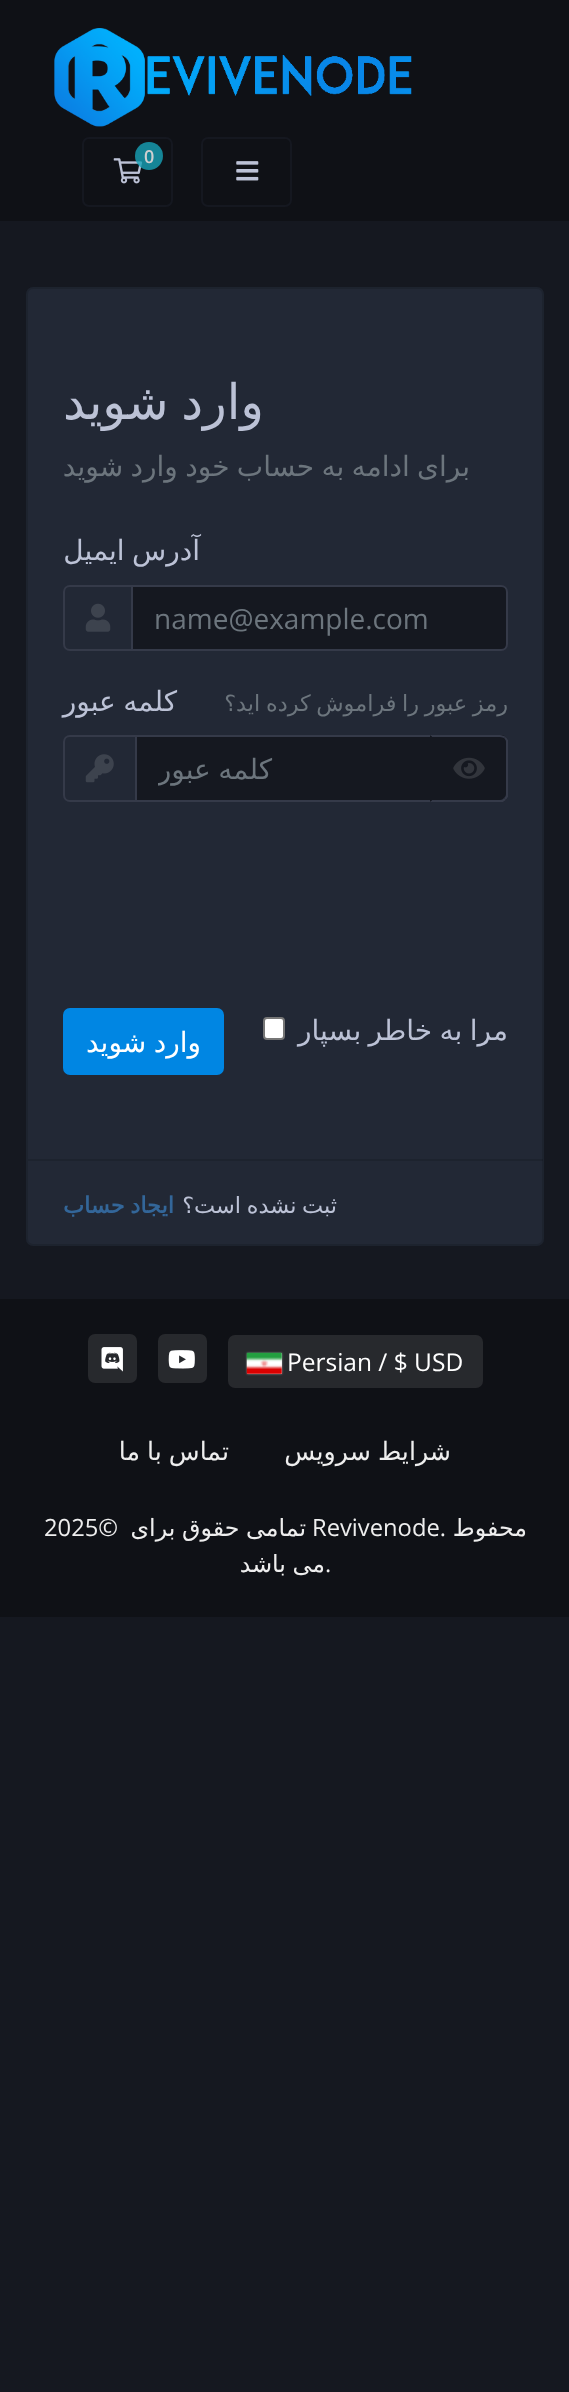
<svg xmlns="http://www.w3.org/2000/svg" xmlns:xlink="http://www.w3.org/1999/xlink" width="569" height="2392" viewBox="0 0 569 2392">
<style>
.cls-1{font:600 18px Open Sans;fill:#cfcfd0}
.cls-2{font:49px DejaVu Sans;direction:rtl;fill:#bcc2d6}
.cls-3{font:28px DejaVu Sans;direction:rtl;fill:#6c757d}
.cls-4{font:28px DejaVu Sans;direction:rtl;fill:#bcc2d6}
.cls-5{font:28px Open Sans;fill:#6c757d}
.cls-6{font:22.4px DejaVu Sans;direction:rtl;fill:#6c757d}
.cls-7{font:28px DejaVu Sans;direction:rtl;fill:#ffffff}
.cls-8{font:22.4px DejaVu Sans;direction:rtl;fill:#bcc2d6}
.cls-9{font:bold 22.4px DejaVu Sans;direction:rtl;fill:#336699}
.cls-10{font:24.5px Open Sans;fill:#ffffff}
.cls-11{font:25.25px DejaVu Sans;direction:rtl;fill:#eeeeee}
.cls-12{font:23.75px DejaVu Sans;direction:rtl;fill:#eeeeee}
.cls-13{font:23.75px Open Sans;fill:#eeeeee}
</style>
<defs>
<clipPath id="clip1"><rect x="158" y="749" width="252" height="39"/></clipPath>
</defs>
<rect width="100%" height="100%" fill="#151820"/>
<rect fill="#0f1116" x="0" y="0" width="569" height="221"/>
<image xlink:href="image0.png" x="54" y="28" width="358" height="99"/>
<rect fill="none" stroke="#151820" stroke-width="2" x="202" y="138" width="89" height="68" rx="6"/>
<image xlink:href="image1.png" x="236" y="161" width="23" height="20"/>
<rect fill="none" stroke="#151820" stroke-width="2" x="83" y="138" width="89" height="68" rx="6"/>
<image xlink:href="image2.png" x="113" y="158" width="30" height="26"/>
<circle fill="#17a2b8" fill-opacity="0.8" cx="149" cy="156" r="14"/>
<rect fill="#222835" x="26" y="287" width="518" height="959" rx="7"/>
<rect fill="none" stroke="#000000" stroke-opacity="0.12" stroke-width="2" x="27" y="288" width="516" height="957" rx="6"/>
<path fill="none" stroke="#353a49" stroke-width="2" d="M70 586H132V650H70C66.5 650 64 647.5 64 644V592C64 588.5 66.5 586 70 586Z"/>
<path fill="#151820" stroke="#353a49" stroke-width="2" d="M132 586H501C504.5 586 507 588.5 507 592V644C507 647.5 504.5 650 501 650H132Z"/>
<image xlink:href="image3.png" x="85" y="603" width="26" height="29"/>
<path fill="none" stroke="#353a49" stroke-width="2" d="M70 736H136V801H70C66.5 801 64 798.5 64 795V742C64 738.5 66.5 736 70 736Z"/>
<rect fill="#151820" stroke="#353a49" stroke-width="2" x="136" y="736" width="295" height="65"/>
<path fill="#151820" d="M431 735H501C505 735 508 738 508 742V795C508 799 505 802 501 802H431Z"/>
<path fill="#353a49" d="M430 735L432 737H500C502 737 503 738 504 738L506 737C504 736 502 735 500 735Z"/>
<path fill="#353a49" d="M508 797L506 800L504 798C505 797 506 796 506 794V742C506 740 505 739 504 738L506 737L508 740Z"/>
<path fill="#353a49" d="M506 800L503 802H430L432 800H500C502 800 503 799 504 798Z"/>
<path fill="#151820" d="M432 737L430 735V802L432 800Z"/>
<image xlink:href="image4.png" x="453" y="757" width="32" height="22"/>
<image xlink:href="image5.png" x="85" y="754" width="29" height="29"/>
<rect fill="#ffffff" stroke="#767676" stroke-width="2" x="264" y="1018" width="20" height="21" rx="3"/>
<rect fill="#0086e3" stroke="#0086e3" stroke-width="2" x="64" y="1009" width="159" height="65" rx="6"/>
<rect fill="#000000" fill-opacity="0.12" x="28" y="1159" width="515" height="2"/>
<rect fill="#0f1116" x="0" y="1299" width="569" height="318"/>
<rect fill="#27292d" x="228" y="1335" width="255" height="53" rx="7"/>
<rect fill="#888888" filter="blur(1px)" x="247" y="1353" width="35" height="21"/>
<rect fill="#dbdbdb" x="247" y="1353" width="35" height="21"/>
<image xlink:href="image6.png" x="246" y="1352" width="36" height="22"/>
<rect fill="#27292d" x="158" y="1334" width="49" height="49" rx="7"/>
<image xlink:href="image7.png" x="168" y="1350" width="27" height="19"/>
<rect fill="#27292d" x="88" y="1334" width="49" height="49" rx="7"/>
<image xlink:href="image8.png" x="101" y="1347" width="22" height="25"/>
<text class="cls-1" x="144" y="163">0</text>
<text class="cls-2" x="264" y="419" word-spacing="-3">وارد شوید</text>
<text class="cls-3" x="470" y="476" word-spacing="-1.5">برای ادامه به حساب خود وارد شوید</text>
<text class="cls-4" x="200" y="560" word-spacing="-1.5">آدرس ایمیل</text>
<text class="cls-5" x="154" y="629">name@example.com</text>
<text class="cls-6" x="508" y="711" word-spacing="-1.5">رمز عبور را فراموش کرده اید؟</text>
<text class="cls-4" x="177" y="711" word-spacing="-1.5">کلمه عبور</text>
<g clip-path="url(#clip1)">
<text class="cls-3" x="272" y="779" word-spacing="-1.5">کلمه عبور</text>
</g>
<text class="cls-4" x="508" y="1040" word-spacing="-1.5">مرا به خاطر بسپار</text>
<text class="cls-7" x="201" y="1052" word-spacing="-1.5">وارد شوید</text>
<text class="cls-8" x="337" y="1213" word-spacing="-1.5">ثبت نشده است؟</text>
<text class="cls-9" x="174" y="1213" word-spacing="-1.5">ایجاد حساب</text>
<text class="cls-10" x="287" y="1371">Persian / $ USD</text>
<text class="cls-11" x="451" y="1460" word-spacing="-1">شرایط سرویس</text>
<text class="cls-11" x="229" y="1460" word-spacing="-1">تماس با ما</text>
<text class="cls-12" x="527" y="1536">محفوط</text>
<text class="cls-13" x="312" y="1536">Revivenode.</text>
<text class="cls-12" x="306" y="1536" word-spacing="-1">تمامی حقوق برای</text>
<text class="cls-13" x="44" y="1536">2025©</text>
<text class="cls-13" x="325" y="1572">.</text>
<text class="cls-12" x="325" y="1572" word-spacing="-1">می باشد</text>
</svg>
